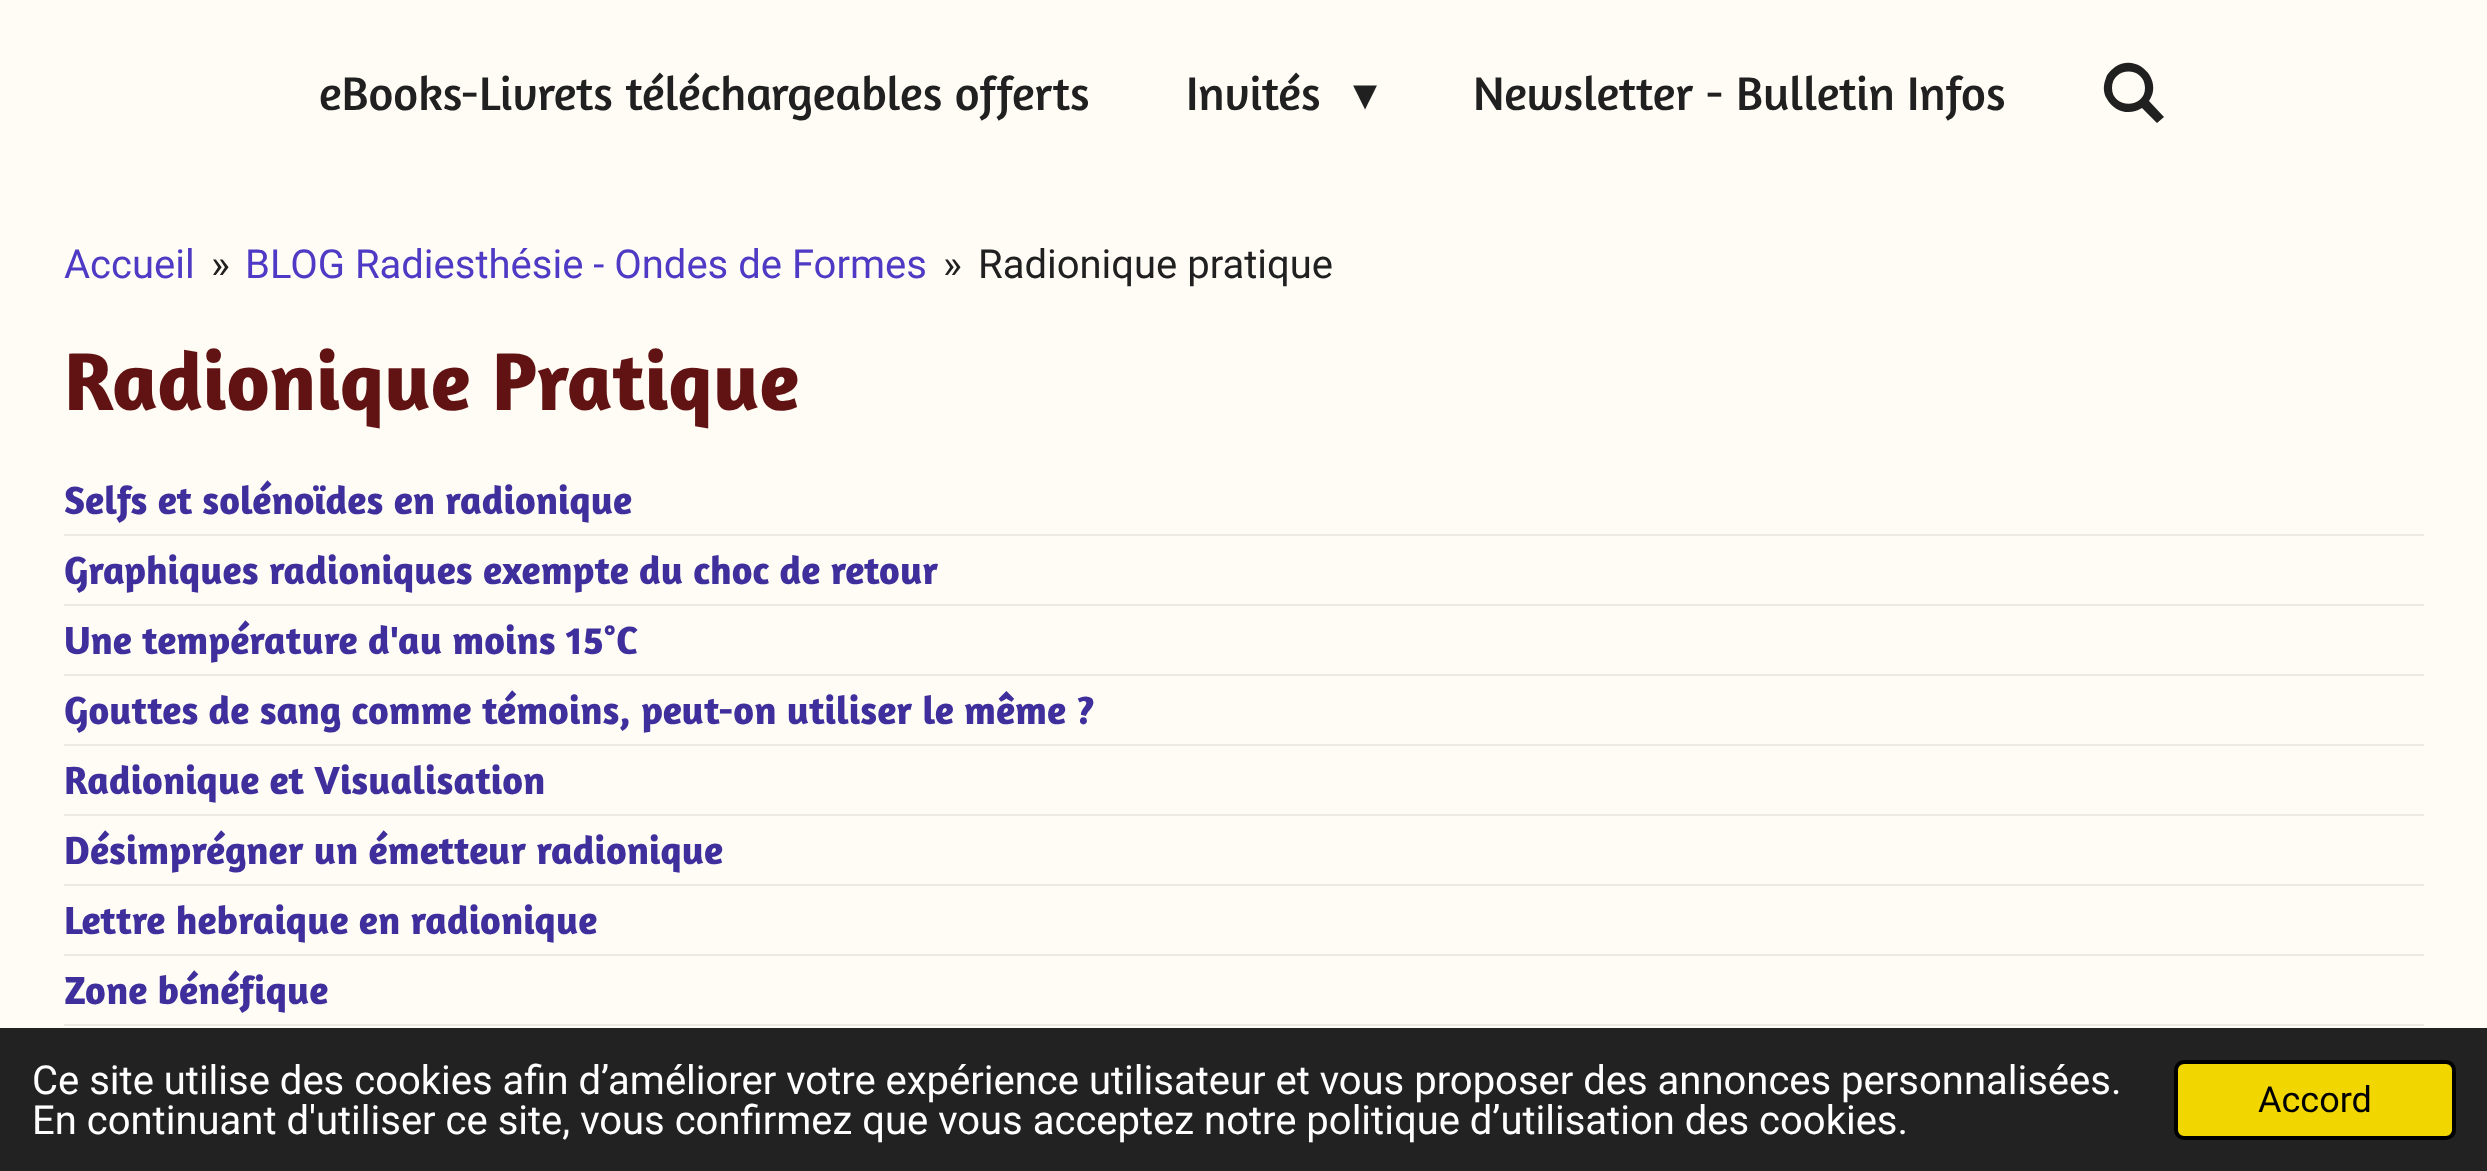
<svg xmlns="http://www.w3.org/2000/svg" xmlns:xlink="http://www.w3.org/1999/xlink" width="2487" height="1171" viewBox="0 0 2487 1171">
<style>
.cls-1{font:48px Amaranth;fill:#202020}
.cls-2{font:48px DejaVu Sans;fill:#202020}
.cls-3{font:40px Roboto;fill:#4e3ac4}
.cls-4{font:40px Roboto;fill:#202020}
.cls-5{font:bold 83.25px Amaranth;fill:#611313}
.cls-6{font:bold 40px Amaranth;fill:#3e2f9d}
.cls-7{font:40px Roboto;fill:#ffffff}
.cls-8{font:36px Roboto;fill:#000000}
</style>
<rect width="100%" height="100%" fill="#fffcf5"/>
<path fill="#202020" d="M2149 101L2164 117L2157 123L2142 108C2130 116 2114 112 2107 99C2103 93 2103 85 2106 78C2107 74 2111 70 2115 67C2137 52 2164 80 2149 101ZM2145 88C2145 66 2112 66 2112 88C2112 109 2145 109 2145 88Z"/>
<rect fill="#edeae4" x="64" y="534" width="2360" height="2"/>
<rect fill="#edeae4" x="64" y="604" width="2360" height="2"/>
<rect fill="#edeae4" x="64" y="674" width="2360" height="2"/>
<rect fill="#edeae4" x="64" y="744" width="2360" height="2"/>
<rect fill="#edeae4" x="64" y="814" width="2360" height="2"/>
<rect fill="#edeae4" x="64" y="884" width="2360" height="2"/>
<rect fill="#edeae4" x="64" y="954" width="2360" height="2"/>
<rect fill="#edeae4" x="64" y="1024" width="2360" height="2"/>
<rect fill="#222222" x="0" y="1028" width="2487" height="143"/>
<rect fill="#f1d600" stroke="#000000" stroke-width="4" x="2176" y="1062" width="278" height="76" rx="8"/>
<text class="cls-1" x="319" y="110">eBooks-Livrets téléchargeables offerts</text>
<text class="cls-1" x="1186" y="110">Invités</text>
<text class="cls-2" x="1353" y="110">▾</text>
<text class="cls-1" x="1473" y="110">Newsletter - Bulletin Infos</text>
<text class="cls-3" x="64" y="278">Accueil</text>
<text class="cls-4" x="211" y="278">»</text>
<text class="cls-3" x="245" y="278">BLOG Radiesthésie - Ondes de Formes</text>
<text class="cls-4" x="943" y="278">»</text>
<text class="cls-4" x="978" y="278">Radionique pratique</text>
<text class="cls-5" x="64" y="410">Radionique Pratique</text>
<text class="cls-6"><tspan x="64" y="514">Selfs et solénoïdes en radionique</tspan><tspan x="64" y="584">Graphiques radioniques exempte du choc de retour</tspan><tspan x="64" y="654">Une température d'au moins 15°C</tspan><tspan x="64" y="724">Gouttes de sang comme témoins, peut-on utiliser le même ?</tspan><tspan x="64" y="794">Radionique et Visualisation</tspan><tspan x="64" y="864">Désimprégner un émetteur radionique</tspan><tspan x="64" y="934">Lettre hebraique en radionique</tspan><tspan x="64" y="1004">Zone bénéfique</tspan></text>
<text class="cls-7"><tspan x="32" y="1094">Ce site utilise des cookies afin d’améliorer votre expérience utilisateur et vous proposer des annonces personnalisées.</tspan><tspan x="32" y="1134">En continuant d'utiliser ce site, vous confirmez que vous acceptez notre politique d’utilisation des cookies.</tspan></text>
<text class="cls-8" x="2258" y="1112">Accord</text>
</svg>
